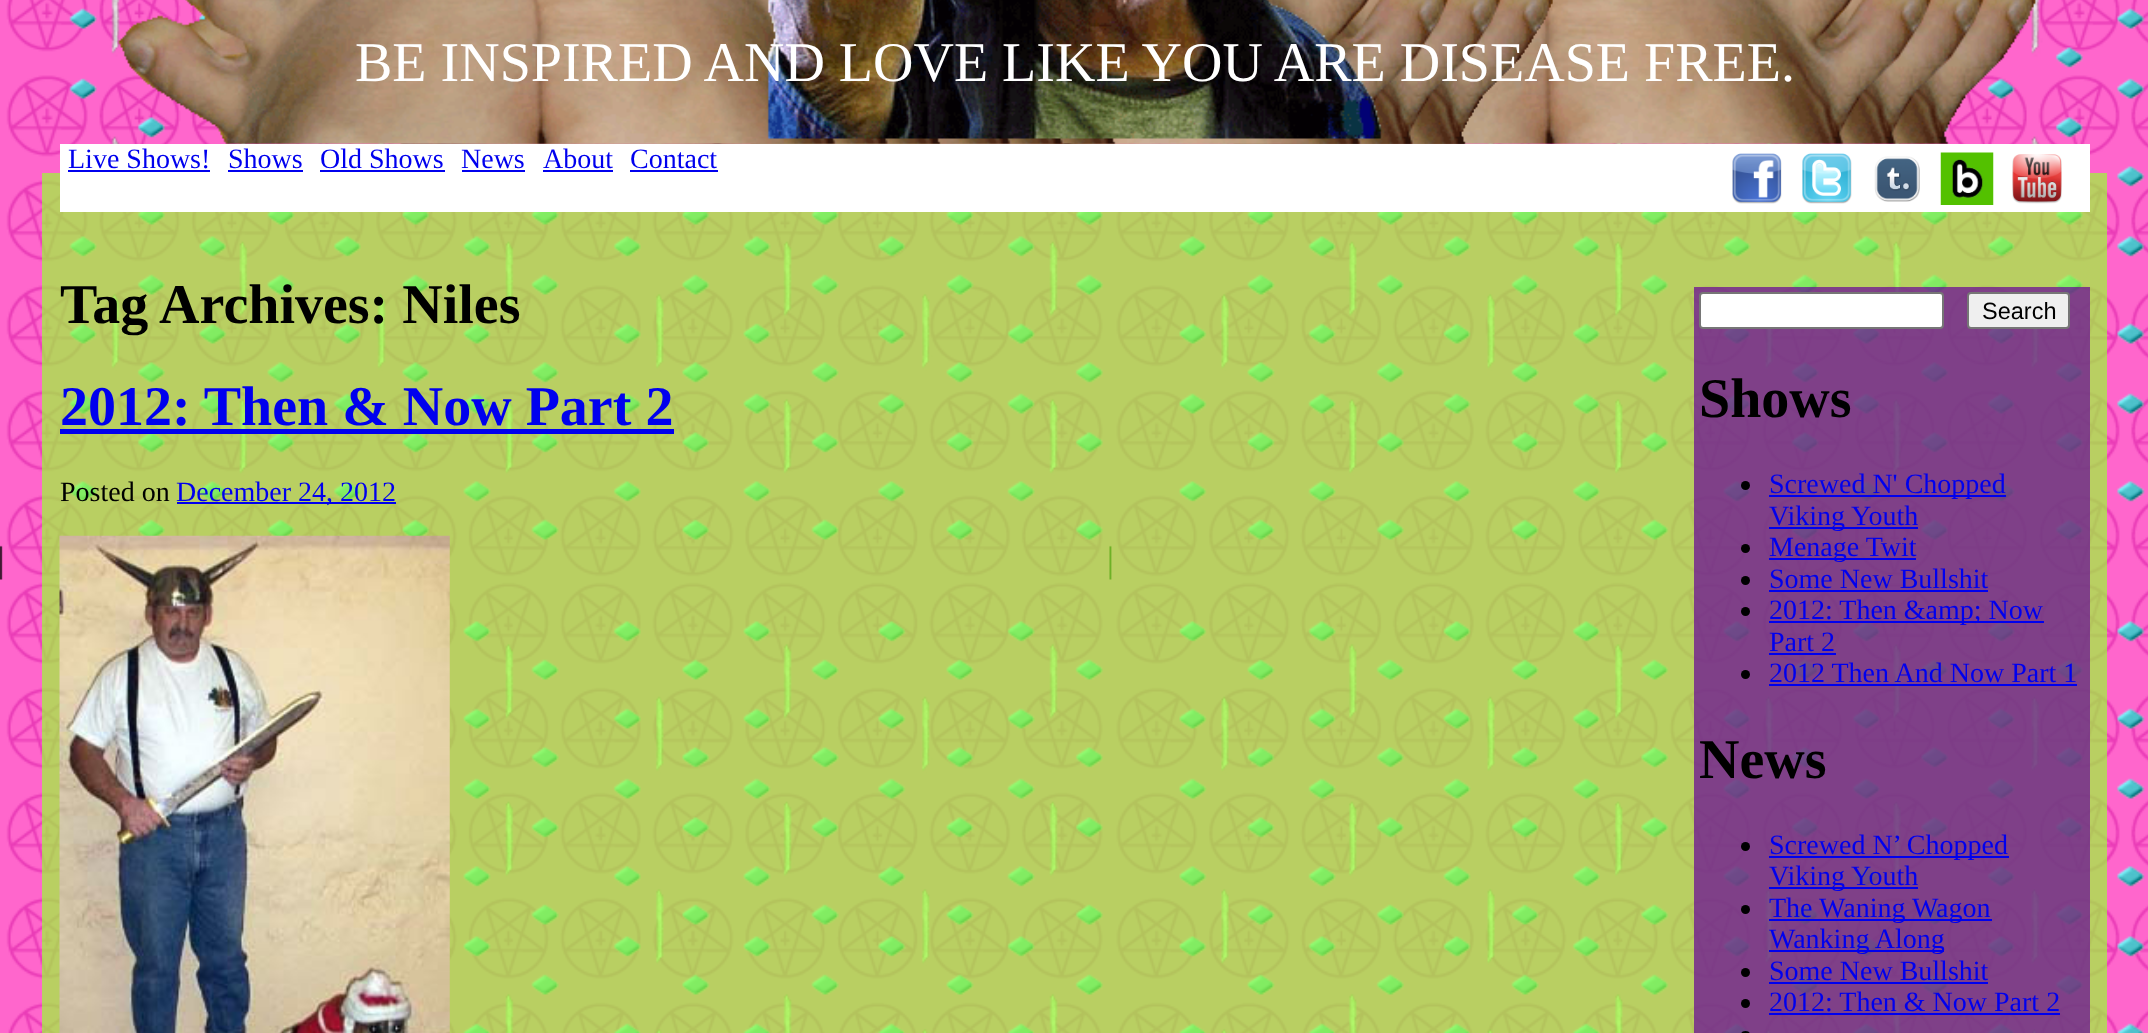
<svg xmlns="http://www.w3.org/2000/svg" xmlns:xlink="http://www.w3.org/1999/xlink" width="2148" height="1033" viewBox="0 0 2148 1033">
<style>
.cls-1{font:56px Liberation Serif;fill:#ffffff}
.cls-2{font:28px Liberation Serif;fill:#0000ee}
.cls-3{font:bold 56px Liberation Serif;fill:#000000}
.cls-4{font:bold 56px Liberation Serif;fill:#0000ee}
.cls-5{font:28px Liberation Serif;fill:#000000}
.cls-6{font:23.5px Liberation Sans;fill:#000000}
</style>
<rect width="100%" height="100%" fill="#000000"/>
<image xlink:href="image0.png" x="0" y="0" width="2148" height="1033"/>
<image xlink:href="image5.png" x="1233" y="0" width="803" height="144"/>
<image xlink:href="image2.png" x="750" y="0" width="803" height="144"/>
<image xlink:href="image3.png" x="750" y="0" width="803" height="144"/>
<image xlink:href="image12.png" x="400" y="138" width="716" height="6"/>
<image xlink:href="image1.png" x="118" y="0" width="823" height="144"/>
<image xlink:href="image4.png" x="767" y="0" width="615" height="139"/>
<rect fill="#9aff33" fill-opacity="0.69" x="42" y="173" width="2065" height="860"/>
<rect fill="#ffffff" x="60" y="144" width="2030" height="68"/>
<rect fill="#0000ee" x="68" y="170" width="142" height="2"/>
<rect fill="#0000ee" x="228" y="170" width="75" height="2"/>
<rect fill="#0000ee" x="320" y="170" width="125" height="2"/>
<rect fill="#0000ee" x="462" y="170" width="63" height="2"/>
<rect fill="#0000ee" x="543" y="170" width="70" height="2"/>
<rect fill="#0000ee" x="630" y="170" width="88" height="2"/>
<image xlink:href="image6.png" x="1732" y="153" width="50" height="51"/>
<image xlink:href="image7.png" x="1802" y="153" width="50" height="51"/>
<image xlink:href="image8.png" x="1874" y="156" width="46" height="46"/>
<image xlink:href="image9.png" x="1940" y="152" width="54" height="53"/>
<image xlink:href="image10.png" x="2012" y="154" width="50" height="50"/>
<rect fill="#0000ee" x="60" y="429" width="614" height="5"/>
<rect fill="#0000ee" x="177" y="502" width="219" height="2"/>
<image xlink:href="image11.png" x="59" y="535" width="391" height="498"/>
<rect fill="#65009a" fill-opacity="0.69" x="1694" y="287" width="396" height="746"/>
<rect fill="#ffffff" stroke="#767676" stroke-width="2" x="1700" y="293" width="243" height="35" rx="3"/>
<rect fill="#efefef" stroke="#767676" stroke-width="2" x="1968" y="293" width="101" height="35" rx="3"/>
<circle fill="#000000" cx="1745.5" cy="485.5" r="4.5"/>
<rect fill="#0000ee" x="1769" y="495" width="237" height="2"/>
<rect fill="#0000ee" x="1769" y="527" width="149" height="2"/>
<circle fill="#000000" cx="1745.5" cy="548.5" r="4.5"/>
<rect fill="#0000ee" x="1769" y="558" width="147" height="2"/>
<circle fill="#000000" cx="1745.5" cy="580.5" r="4.5"/>
<rect fill="#0000ee" x="1769" y="590" width="219" height="2"/>
<circle fill="#000000" cx="1745.5" cy="611.5" r="4.5"/>
<rect fill="#0000ee" x="1769" y="621" width="275" height="2"/>
<rect fill="#0000ee" x="1769" y="653" width="67" height="2"/>
<circle fill="#000000" cx="1745.5" cy="674.5" r="4.5"/>
<rect fill="#0000ee" x="1769" y="684" width="308" height="2"/>
<circle fill="#000000" cx="1745.5" cy="846.5" r="4.5"/>
<rect fill="#0000ee" x="1769" y="856" width="240" height="2"/>
<rect fill="#0000ee" x="1769" y="887" width="149" height="2"/>
<circle fill="#000000" cx="1745.5" cy="909.5" r="4.5"/>
<rect fill="#0000ee" x="1769" y="919" width="223" height="2"/>
<rect fill="#0000ee" x="1769" y="950" width="175" height="2"/>
<circle fill="#000000" cx="1745.5" cy="972.5" r="4.5"/>
<rect fill="#0000ee" x="1769" y="982" width="219" height="2"/>
<circle fill="#000000" cx="1745.5" cy="1003.5" r="4.5"/>
<rect fill="#0000ee" x="1769" y="1013" width="291" height="2"/>
<rect fill="#000000" x="1741" y="1031" width="9" height="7" rx="4.5"/>
<text class="cls-1" x="355" y="81">BE INSPIRED AND LOVE LIKE YOU ARE DISEASE FREE.</text>
<text class="cls-2" x="68" y="168">Live Shows!</text>
<text class="cls-2" x="228" y="168">Shows</text>
<text class="cls-2" x="320" y="168">Old Shows</text>
<text class="cls-2" x="461" y="168">News</text>
<text class="cls-2" x="543" y="168">About</text>
<text class="cls-2" x="630" y="168">Contact</text>
<text class="cls-3" x="60" y="323">Tag Archives: Niles</text>
<text class="cls-4" x="60" y="425">2012: Then &amp; Now Part 2</text>
<text class="cls-5" x="60" y="501">Posted on</text>
<text class="cls-2" x="176" y="501">December 24, 2012</text>
<text class="cls-6" x="1982" y="319">Search</text>
<text class="cls-3" x="1699" y="417">Shows</text>
<text class="cls-2"><tspan x="1769" y="493">Screwed N' Chopped</tspan><tspan x="1769" y="525">Viking Youth</tspan><tspan x="1769" y="556">Menage Twit</tspan><tspan x="1769" y="588">Some New Bullshit</tspan><tspan x="1769" y="619">2012: Then &amp;amp; Now</tspan><tspan x="1769" y="651">Part 2</tspan><tspan x="1769" y="682">2012 Then And Now Part 1</tspan></text>
<text class="cls-3" x="1699" y="778">News</text>
<text class="cls-2"><tspan x="1769" y="854">Screwed N’ Chopped</tspan><tspan x="1769" y="885">Viking Youth</tspan><tspan x="1769" y="917">The Waning Wagon</tspan><tspan x="1769" y="948">Wanking Along</tspan><tspan x="1769" y="980">Some New Bullshit</tspan><tspan x="1769" y="1011">2012: Then &amp; Now Part 2</tspan></text>
</svg>
